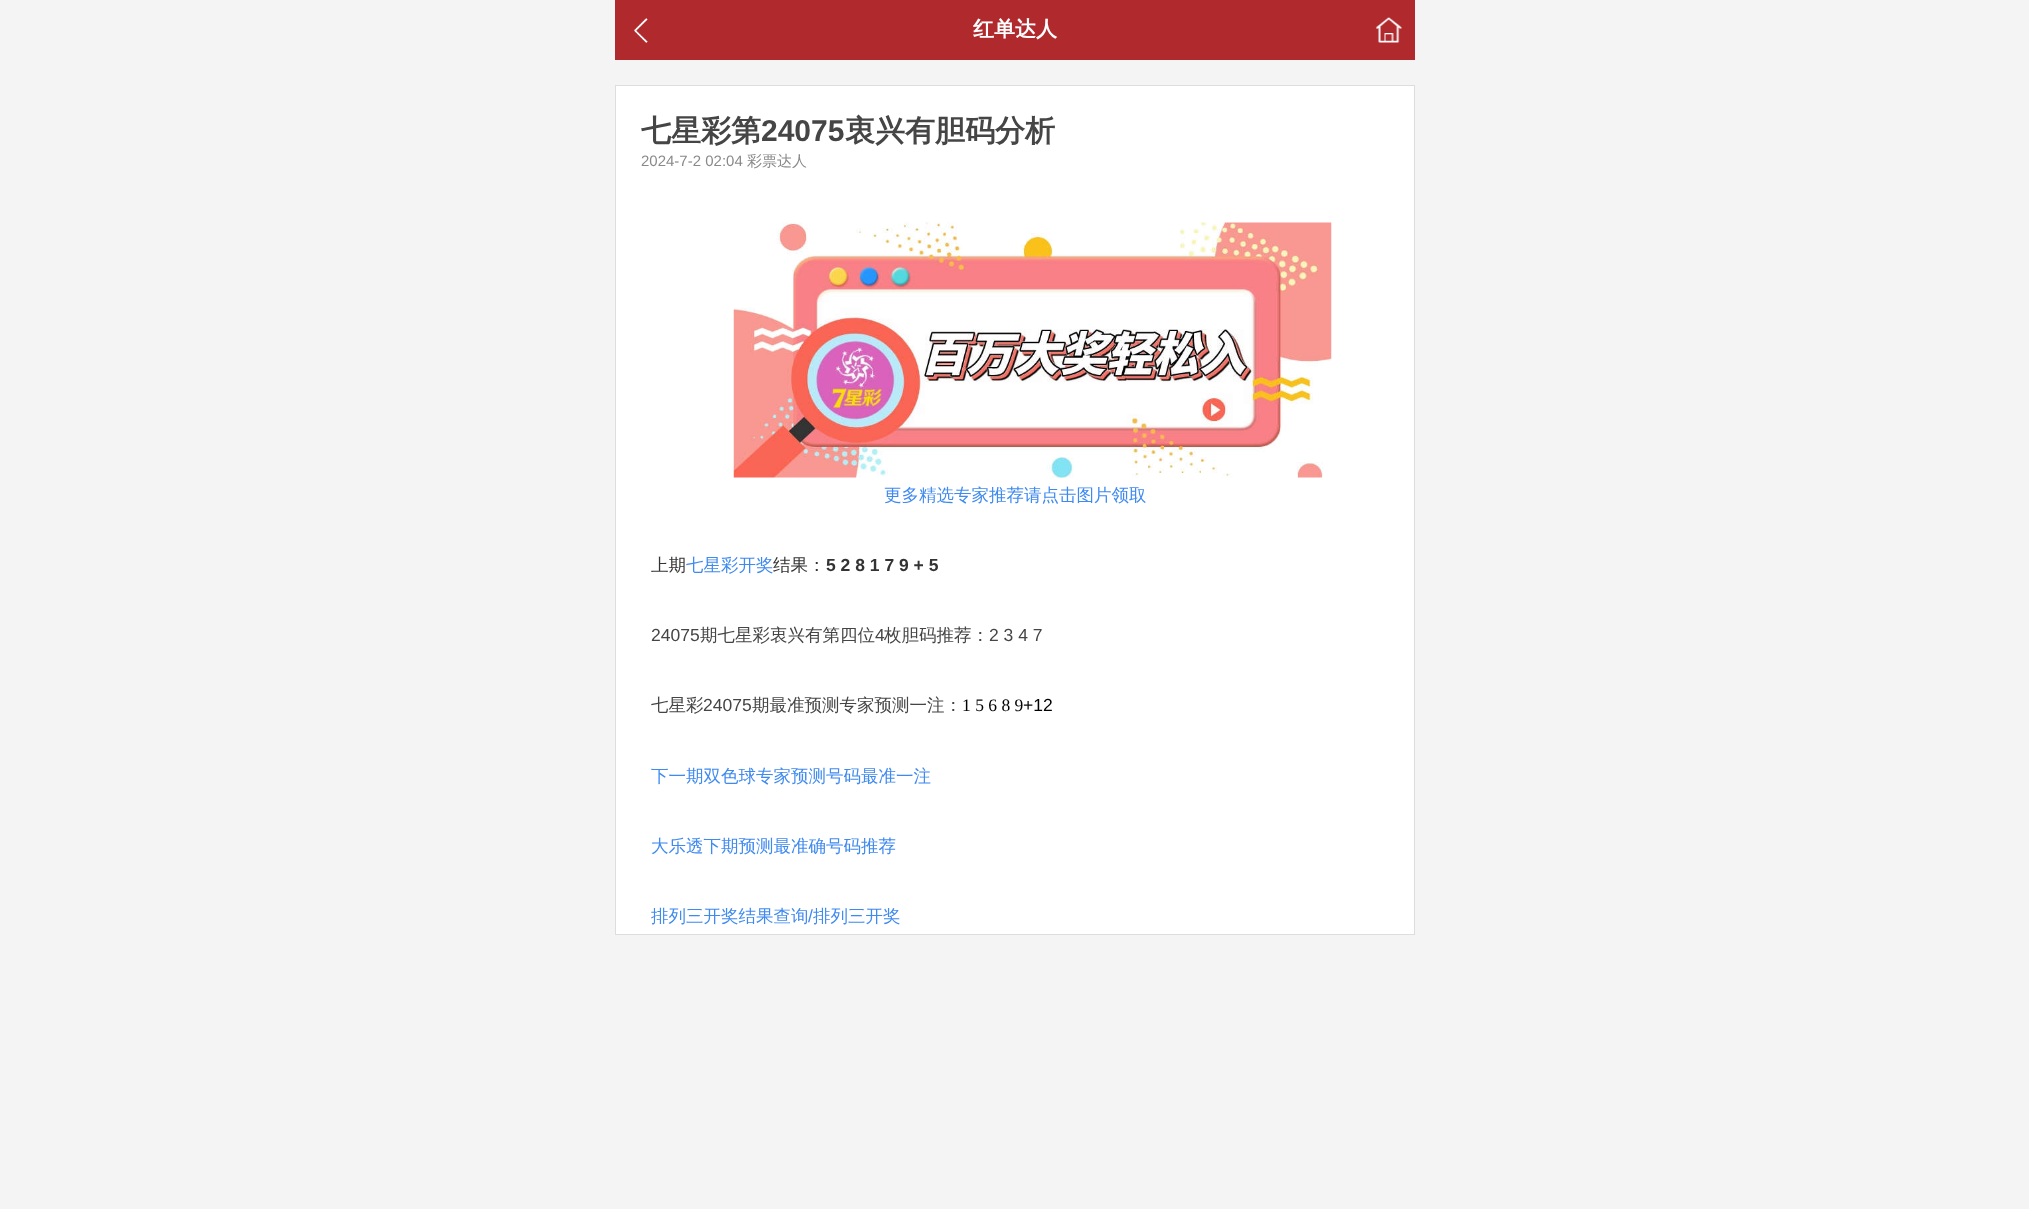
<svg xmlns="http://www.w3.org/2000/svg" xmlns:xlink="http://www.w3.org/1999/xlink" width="2029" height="1209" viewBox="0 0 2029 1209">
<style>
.cls-1{font:bold 21px WenQuanYi Zen Hei;fill:#ffffff}
.cls-2{font:bold 30px WenQuanYi Zen Hei;fill:#454545}
.cls-3{font:bold 30px Liberation Sans;fill:#454545}
.cls-4{font:15px Liberation Sans;fill:#898989}
.cls-5{font:500 15px WenQuanYi Zen Hei;fill:#898989}
.cls-6{font:500 17.5px WenQuanYi Zen Hei;fill:#3f8af0}
.cls-7{font:500 17.5px WenQuanYi Zen Hei;fill:#333333}
.cls-8{font:bold 17.5px Liberation Sans;fill:#333333}
.cls-9{font:17.5px Liberation Sans;fill:#454545}
.cls-10{font:500 17.5px WenQuanYi Zen Hei;fill:#454545}
.cls-11{font:17.5px Liberation Serif;fill:#000000}
.cls-12{font:17.5px Liberation Sans;fill:#000000}
.cls-13{font:17.5px Liberation Sans;fill:#3f8af0}
</style>
<rect width="100%" height="100%" fill="#f4f4f5"/>
<rect fill="#af292d" x="615" y="0" width="800" height="60"/>
<image xlink:href="image0.png" x="634" y="18" width="14" height="25"/>
<image xlink:href="image1.png" x="1375" y="17" width="27" height="26"/>
<rect fill="#ffffff" stroke="#dddddd" x="615.5" y="85.5" width="799" height="849"/>
<image xlink:href="image2.png" x="733" y="222" width="599" height="256"/>
<text class="cls-1" x="973" y="36">红单达人</text>
<text class="cls-2" x="641" y="141">七星彩第</text>
<text class="cls-3" x="761" y="141">24075</text>
<text class="cls-2" x="845" y="141">衷兴有胆码分析</text>
<text class="cls-4" x="641" y="166">2024-7-2 02:04</text>
<text class="cls-5" x="747" y="166">彩票达人</text>
<text class="cls-6" x="884" y="501">更多精选专家推荐请点击图片领取</text>
<text class="cls-7" x="651" y="571">上期</text>
<text class="cls-6" x="686" y="571">七星彩开奖</text>
<text class="cls-7" x="773" y="571">结果：</text>
<text class="cls-8" x="826" y="571">5 2 8 1 7 9 + 5</text>
<text class="cls-9" x="651" y="641">24075</text>
<text class="cls-10" x="700" y="641">期七星彩衷兴有第四位</text>
<text class="cls-9" x="875" y="641">4</text>
<text class="cls-10" x="884" y="641">枚胆码推荐：</text>
<text class="cls-9" x="989" y="641">2 3 4 7</text>
<text class="cls-10" x="651" y="711">七星彩</text>
<text class="cls-9" x="703" y="711">24075</text>
<text class="cls-10" x="752" y="711">期最准预测专家预测一注：</text>
<text class="cls-11" x="962" y="711">1 5 6 8 9</text>
<text class="cls-12" x="1023" y="711">+12</text>
<text class="cls-6" x="651" y="782">下一期双色球专家预测号码最准一注</text>
<text class="cls-6" x="651" y="852">大乐透下期预测最准确号码推荐</text>
<text class="cls-6" x="651" y="922">排列三开奖结果查询</text>
<text class="cls-13" x="808" y="922">/</text>
<text class="cls-6" x="813" y="922">排列三开奖</text>
</svg>
